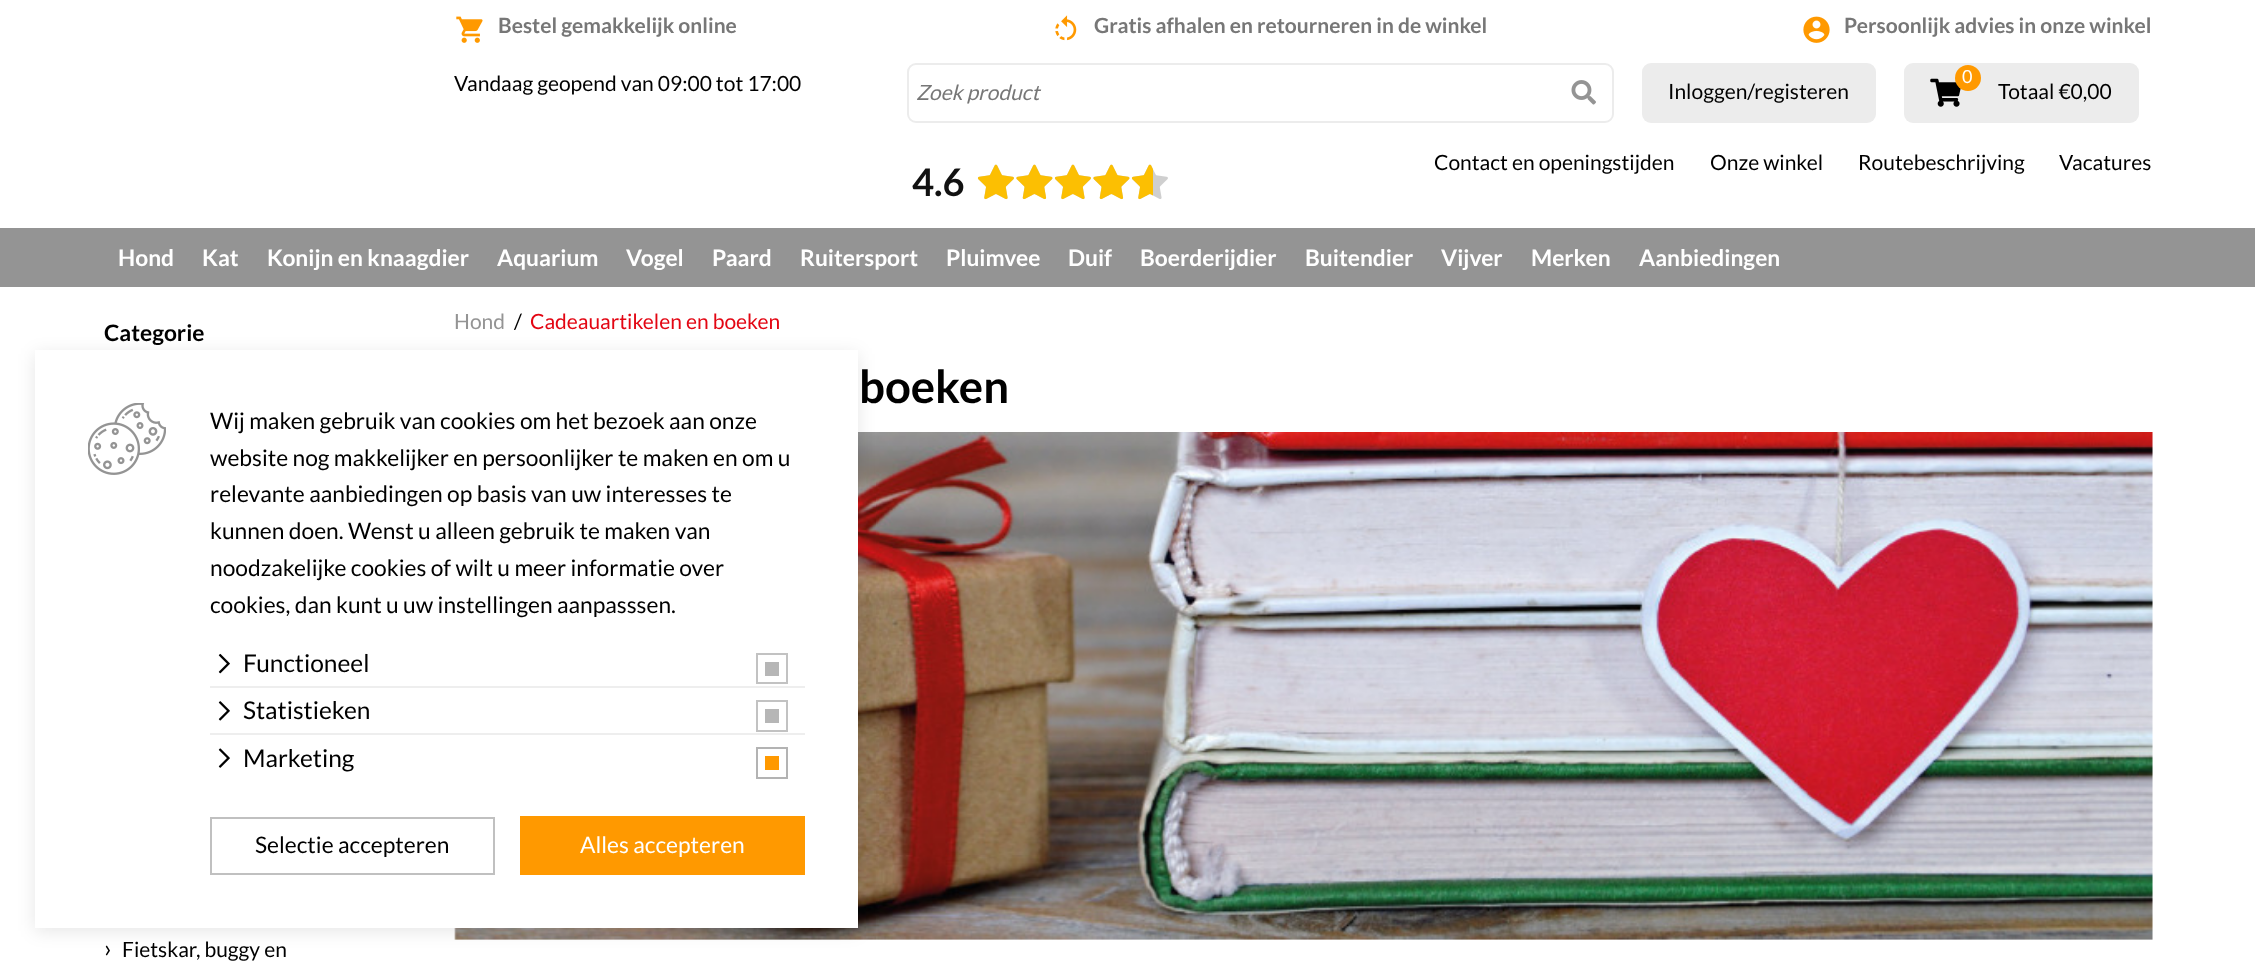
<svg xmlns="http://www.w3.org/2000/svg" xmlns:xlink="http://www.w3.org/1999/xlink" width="2255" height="962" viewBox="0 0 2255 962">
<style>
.cls-1{font:bold 21px Lato;fill:#777777}
.cls-2{font:21px Lato;fill:#000000}
.cls-3{font:italic 21px Lato;fill:#777777}
.cls-4{font:18px Lato;fill:#ffffff}
.cls-5{font:bold 38px Lato;fill:#111111}
.cls-6{font:bold 22.75px Lato;fill:#ffffff}
.cls-7{font:bold 22.75px Lato;fill:#000000}
.cls-8{font:24.5px Lato;fill:#000000}
.cls-9{font:21px Lato;fill:#949494}
.cls-10{font:21px Lato;fill:#e30613}
.cls-11{font:bold 45.5px Lato;fill:#000000}
.cls-12{font:22.75px Lato;fill:#000000}
.cls-13{font:22.75px Lato;fill:#ffffff}
</style>
<rect width="100%" height="100%" fill="#ffffff"/>
<image xlink:href="image0.png" x="456" y="16" width="27" height="27"/>
<image xlink:href="image1.png" x="1055" y="15" width="22" height="26"/>
<image xlink:href="image2.png" x="1803" y="16" width="27" height="27"/>
<rect fill="none" stroke="#ececec" stroke-width="2" x="908" y="64" width="705" height="58" rx="8"/>
<image xlink:href="image3.png" x="1571" y="80" width="25" height="25"/>
<rect fill="#ececec" x="1642" y="63" width="234" height="60" rx="9"/>
<rect fill="#ececec" x="1904" y="63" width="235" height="60" rx="9"/>
<image xlink:href="image4.png" x="1930" y="78" width="31" height="29"/>
<circle fill="#ff9900" cx="1968" cy="78" r="13"/>
<image xlink:href="image6.png" x="978" y="164" width="36" height="35"/>
<image xlink:href="image5.png" x="977" y="164" width="37" height="36"/>
<image xlink:href="image7.png" x="1016" y="164" width="37" height="35"/>
<image xlink:href="image8.png" x="1016" y="164" width="37" height="36"/>
<image xlink:href="image6.png" x="1055" y="164" width="36" height="35"/>
<image xlink:href="image5.png" x="1054" y="164" width="37" height="36"/>
<image xlink:href="image7.png" x="1093" y="164" width="37" height="35"/>
<image xlink:href="image8.png" x="1093" y="164" width="37" height="36"/>
<image xlink:href="image6.png" x="1132" y="164" width="36" height="35"/>
<image xlink:href="image9.png" x="1131" y="164" width="22" height="36"/>
<rect fill="#949494" x="0" y="228" width="2255" height="59"/>
<image xlink:href="image10.png" x="454" y="432" width="1699" height="508"/>
<rect fill="#000000" fill-opacity="0.1" filter="blur(9px)" x="35" y="354" width="823" height="577"/>
<rect fill="#ffffff" x="35" y="350" width="823" height="578"/>
<image xlink:href="image11.png" x="88" y="403" width="78" height="72"/>
<image xlink:href="image12.png" x="218" y="653" width="12" height="21"/>
<rect fill="none" stroke="#c2c2c2" stroke-width="2" x="757" y="654" width="30" height="29"/>
<rect fill="#b6b6b6" x="765" y="662" width="14" height="14"/>
<rect fill="#eeeeee" x="210" y="686" width="595" height="2"/>
<image xlink:href="image13.png" x="218" y="701" width="12" height="20"/>
<rect fill="none" stroke="#c2c2c2" stroke-width="2" x="757" y="701" width="30" height="30"/>
<rect fill="#b6b6b6" x="765" y="709" width="14" height="14"/>
<rect fill="#eeeeee" x="210" y="733" width="595" height="2"/>
<image xlink:href="image14.png" x="218" y="748" width="12" height="20"/>
<rect fill="none" stroke="#b3b3b3" stroke-width="2" x="757" y="748" width="30" height="30"/>
<rect fill="#ff9900" x="765" y="756" width="14" height="14"/>
<rect fill="none" stroke="#c0c0c0" stroke-width="2" x="211" y="818" width="283" height="56"/>
<rect fill="#ff9900" x="520" y="816" width="285" height="59"/>
<text class="cls-1" x="498" y="33">Bestel gemakkelijk online</text>
<text class="cls-1" x="1094" y="33">Gratis afhalen en retourneren in de winkel</text>
<text class="cls-1" x="1844" y="33">Persoonlijk advies in onze winkel</text>
<text class="cls-2" x="454" y="91">Vandaag geopend van 09:00 tot 17:00</text>
<text class="cls-3" x="916" y="100">Zoek product</text>
<text class="cls-2" x="1668" y="99">Inloggen/registeren</text>
<text class="cls-4" x="1962" y="83">0</text>
<text class="cls-2" x="1998" y="99">Totaal €0,00</text>
<text class="cls-2" x="1434" y="170">Contact en openingstijden</text>
<text class="cls-2" x="1710" y="170">Onze winkel</text>
<text class="cls-2" x="1858" y="170">Routebeschrijving</text>
<text class="cls-2" x="2059" y="170">Vacatures</text>
<text class="cls-5" x="912" y="196">4.6</text>
<text class="cls-6" x="118" y="266">Hond</text>
<text class="cls-6" x="202" y="266">Kat</text>
<text class="cls-6" x="267" y="266">Konijn en knaagdier</text>
<text class="cls-6" x="497" y="266">Aquarium</text>
<text class="cls-6" x="626" y="266">Vogel</text>
<text class="cls-6" x="712" y="266">Paard</text>
<text class="cls-6" x="800" y="266">Ruitersport</text>
<text class="cls-6" x="946" y="266">Pluimvee</text>
<text class="cls-6" x="1068" y="266">Duif</text>
<text class="cls-6" x="1140" y="266">Boerderijdier</text>
<text class="cls-6" x="1305" y="266">Buitendier</text>
<text class="cls-6" x="1441" y="266">Vijver</text>
<text class="cls-6" x="1531" y="266">Merken</text>
<text class="cls-6" x="1639" y="266">Aanbiedingen</text>
<text class="cls-7" x="104" y="341">Categorie</text>
<text class="cls-8" x="104" y="957">›</text>
<text class="cls-2" x="122" y="957">Fietskar, buggy en</text>
<text class="cls-9" x="454" y="329">Hond</text>
<text class="cls-2" x="514" y="329">/</text>
<text class="cls-10" x="530" y="329">Cadeauartikelen en boeken</text>
<text class="cls-11" x="859" y="403">boeken</text>
<text class="cls-12"><tspan x="210" y="429">Wij maken gebruik van cookies om het bezoek aan onze</tspan><tspan x="210" y="466">website nog makkelijker en persoonlijker te maken en om u</tspan><tspan x="210" y="502">relevante aanbiedingen op basis van uw interesses te</tspan><tspan x="210" y="539">kunnen doen. Wenst u alleen gebruik te maken van</tspan><tspan x="210" y="576">noodzakelijke cookies of wilt u meer informatie over</tspan><tspan x="210" y="613">cookies, dan kunt u uw instellingen aanpasssen.</tspan></text>
<text class="cls-8"><tspan x="243" y="672">Functioneel</tspan><tspan x="243" y="719">Statistieken</tspan><tspan x="243" y="767">Marketing</tspan></text>
<text class="cls-12" x="255" y="853">Selectie accepteren</text>
<text class="cls-13" x="580" y="853">Alles accepteren</text>
</svg>
